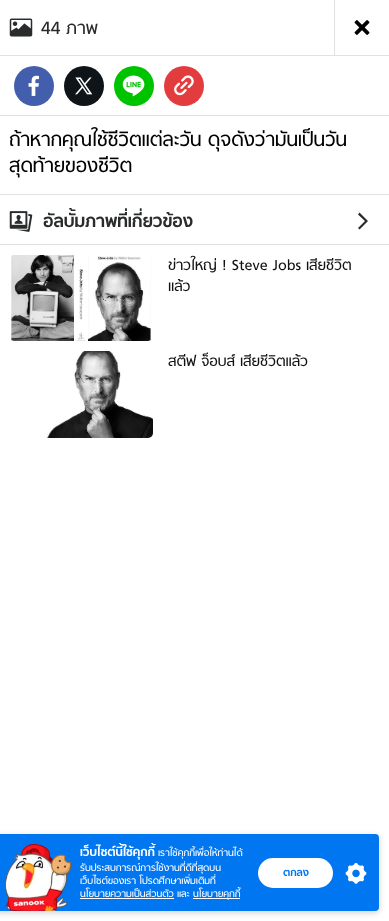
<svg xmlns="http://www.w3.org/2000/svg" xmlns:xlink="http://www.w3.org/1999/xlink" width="389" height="921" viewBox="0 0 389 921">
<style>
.cls-1{font:20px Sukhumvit;fill:#292b2c}
.cls-2{font:22px Sukhumvit;fill:#000000}
.cls-3{font:bold 20px Sukhumvit;fill:#292b2c}
.cls-4{font:16.5px Sukhumvit;fill:#111111}
.cls-5{font:bold 13.75px Sukhumvit;fill:#ffffff}
.cls-6{font:11px Sukhumvit;fill:#ffffff}
.cls-7{font:bold 12px Sukhumvit;fill:#0076f1}
</style>
<rect width="100%" height="100%" fill="#ffffff"/>
<rect fill="#e1e1e1" x="0" y="55" width="389" height="1"/>
<image xlink:href="image0.png" x="9" y="18" width="24" height="19"/>
<rect fill="#e1e1e1" x="334" y="0" width="1" height="55"/>
<image xlink:href="image1.png" x="354" y="20" width="16" height="15"/>
<rect fill="#e1e1e1" x="0" y="115" width="389" height="1"/>
<circle fill="#435ead" cx="34" cy="86" r="20"/>
<image xlink:href="image2.png" x="28" y="75" width="11" height="21"/>
<circle fill="#0f1419" cx="84" cy="86" r="20"/>
<image xlink:href="image3.png" x="75" y="77" width="18" height="18"/>
<circle fill="#00c300" cx="134" cy="86" r="20"/>
<image xlink:href="image4.png" x="122" y="75" width="23" height="22"/>
<circle fill="#e33c3f" cx="184" cy="86" r="20"/>
<image xlink:href="image5.png" x="174" y="75" width="20" height="21"/>
<rect fill="#e1e1e1" x="0" y="194" width="389" height="1"/>
<rect fill="#e1e1e1" x="0" y="244" width="389" height="1"/>
<image xlink:href="image6.png" x="9" y="211" width="24" height="21"/>
<path fill="#292b2c" d="M368 221L359.5 212.5L358 214.5L365 221L358 228L359.5 229.5Z"/>
<image xlink:href="image7.png" x="11" y="255" width="140" height="86"/>
<image xlink:href="image8.png" x="46" y="351" width="107" height="87"/>
<rect fill="#000000" fill-opacity="0.17" filter="blur(3px)" x="-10" y="836" width="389" height="77" rx="4"/>
<rect fill="#0076f1" x="-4" y="834" width="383" height="77" rx="4"/>
<image xlink:href="image9.png" x="4" y="844" width="67" height="67"/>
<rect fill="#ffffff" x="80" y="898" width="94" height="1"/>
<rect fill="#ffffff" x="193" y="898" width="47" height="1"/>
<rect fill="#ffffff" x="258" y="858" width="75" height="30" rx="15"/>
<image xlink:href="image10.png" x="345" y="863" width="22" height="21"/>
<text class="cls-1" x="41" y="34">44 ภาพ</text>
<text class="cls-2"><tspan x="9" y="146">ถ้าหากคุณใช้ชีวิตแต่ละวัน ดุจดังว่ามันเป็นวัน</tspan><tspan x="9" y="172">สุดท้ายของชีวิต</tspan></text>
<text class="cls-3" x="43" y="227">อัลบั้มภาพที่เกี่ยวข้อง</text>
<text class="cls-4"><tspan x="168" y="270">ข่าวใหญ่ ! Steve Jobs เสียชีวิต</tspan><tspan x="168" y="291">แล้ว</tspan></text>
<text class="cls-4" x="168" y="366">สตีฟ จ็อบส์ เสียชีวิตแล้ว</text>
<text class="cls-5" x="80" y="856">เว็บไซต์นี้ใช้คุกกี้</text>
<text class="cls-6" x="158" y="856">เราใช้คุกกี้เพื่อให้ท่านได้</text>
<text class="cls-6"><tspan x="80" y="871">รับประสบการณ์การใช้งานที่ดีที่สุดบน</tspan><tspan x="80" y="884">เว็บไซต์ของเรา โปรดศึกษาเพิ่มเติมที่</tspan><tspan x="80" y="897">นโยบายความเป็นส่วนตัว และ</tspan></text>
<text class="cls-6" x="193" y="897">นโยบายคุกกี้</text>
<text class="cls-7" x="283" y="876">ตกลง</text>
</svg>
